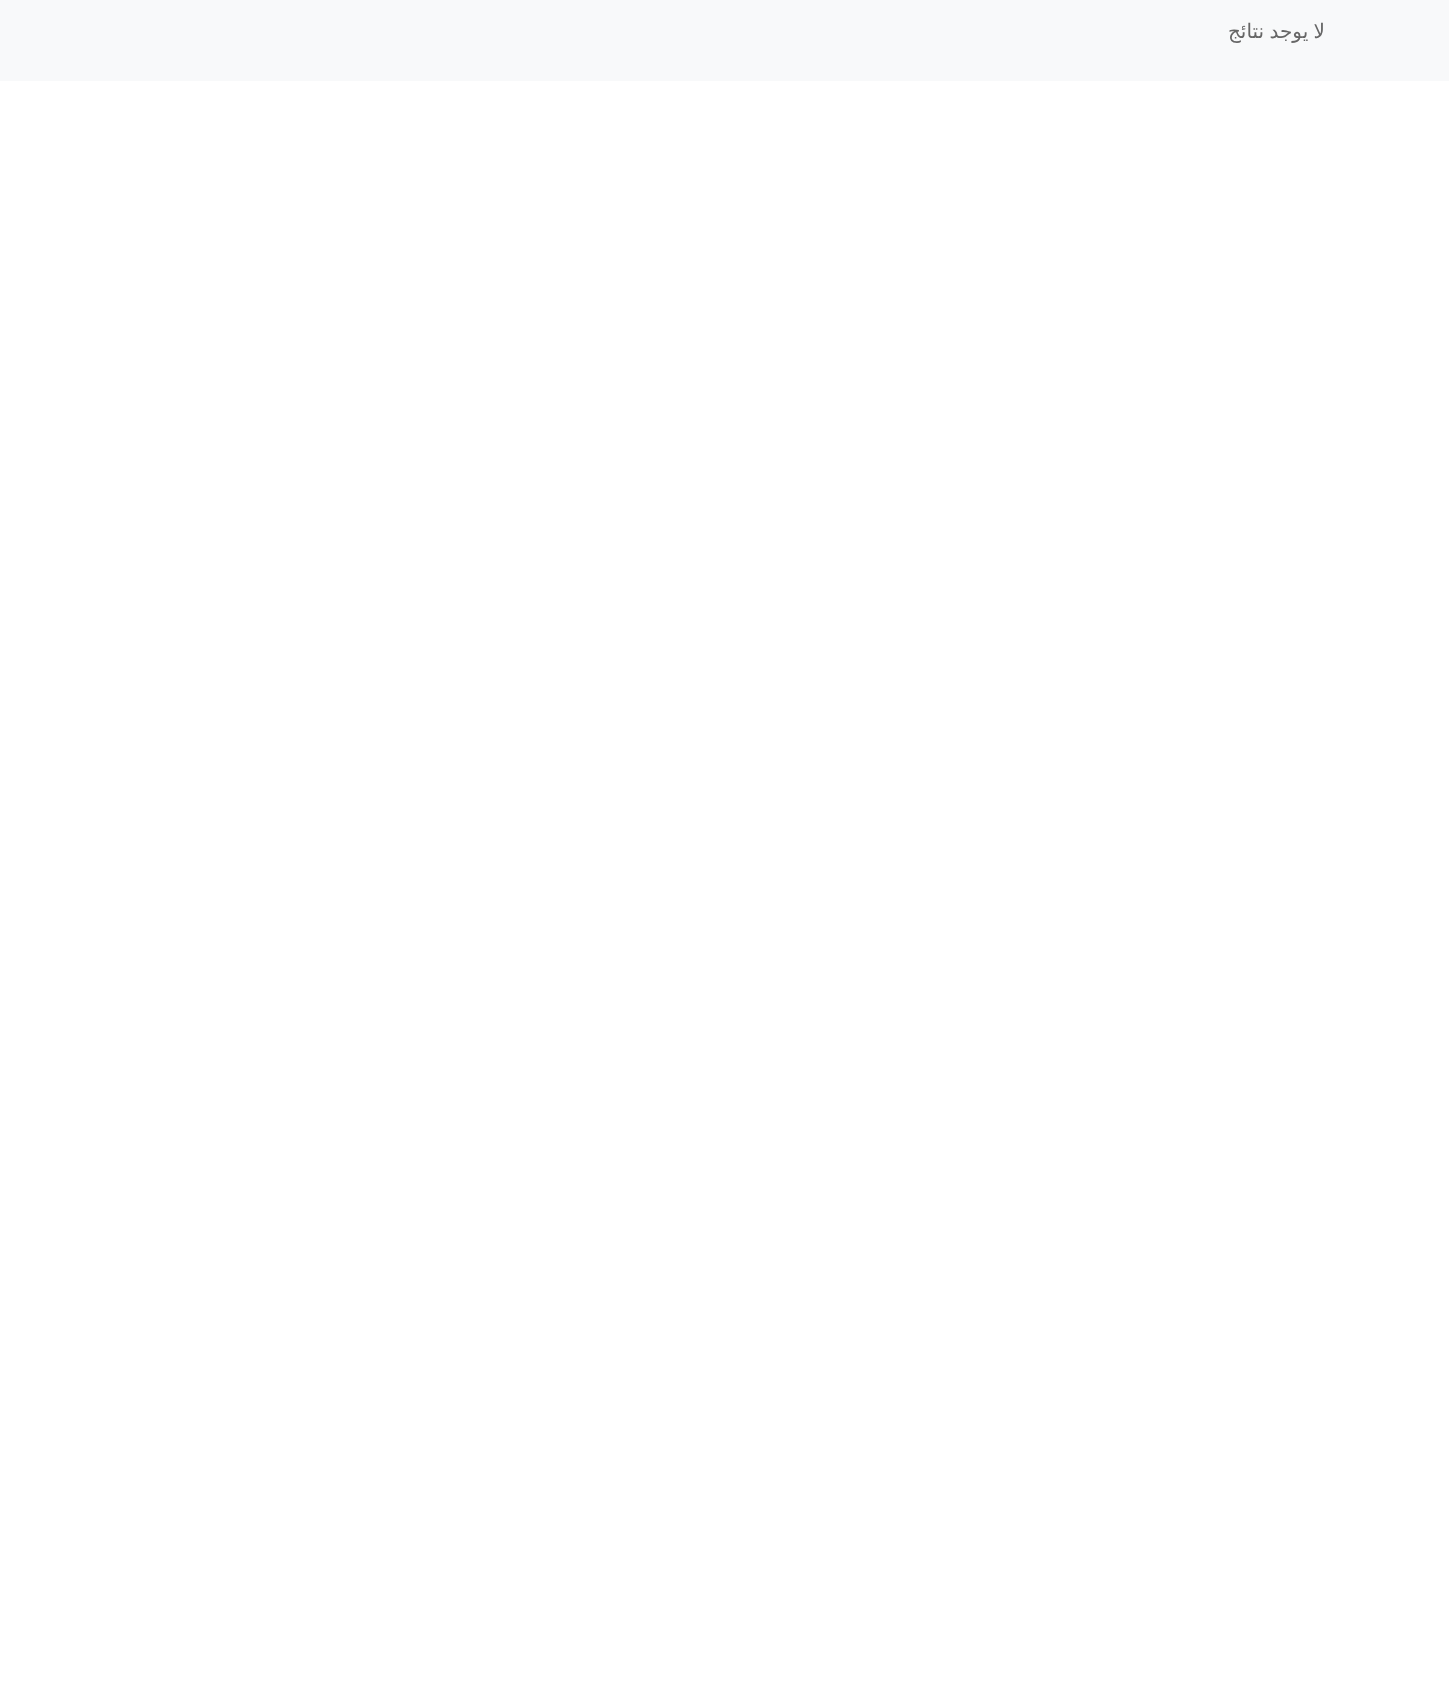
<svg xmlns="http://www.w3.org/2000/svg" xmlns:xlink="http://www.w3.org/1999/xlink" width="1449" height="1703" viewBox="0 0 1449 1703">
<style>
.cls-1{font:20px DejaVu Sans;direction:rtl;fill:#666666}
</style>
<rect width="100%" height="100%" fill="#ffffff"/>
<rect fill="#f8f9fa" x="0" y="0" width="1449" height="81"/>
<text class="cls-1" x="1325" y="38" word-spacing="-1">لا يوجد نتائج</text>
</svg>
